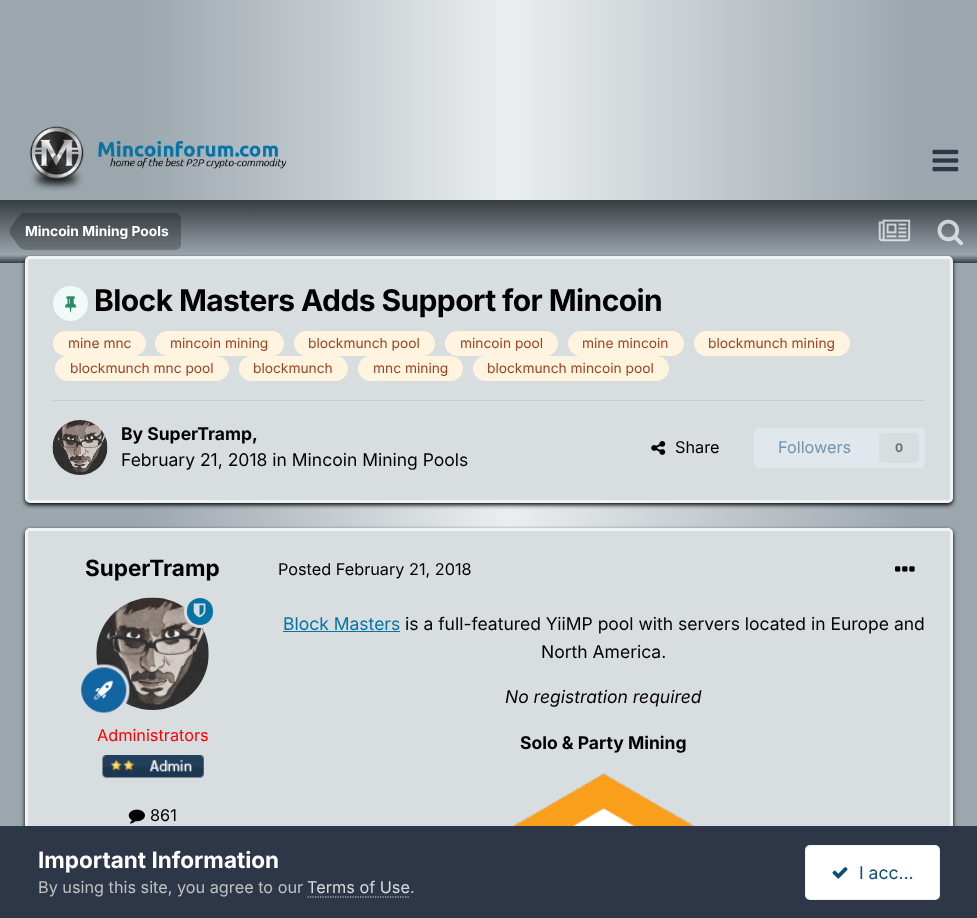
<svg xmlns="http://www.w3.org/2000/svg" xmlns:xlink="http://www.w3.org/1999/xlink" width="977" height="918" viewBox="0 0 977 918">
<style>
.cls-1{font:bold 13.75px Inter;fill:#ffffff}
.cls-2{font:bold 30px Inter;letter-spacing:-0.6px;fill:#000000}
.cls-3{font:13.75px Inter;fill:#9c4221}
.cls-4{font:bold 17.5px Inter;fill:#000000}
.cls-5{font:17.5px Inter;fill:#000000}
.cls-6{font:16.25px Inter;fill:#000000}
.cls-7{font:16.25px Inter;fill:#7395ad}
.cls-8{font:bold 12px Inter;fill:#6c6f70}
.cls-9{font:bold 22.5px Inter;fill:#000000}
.cls-10{font:16.25px Inter;fill:#ff0000}
.cls-11{font:17.5px Inter;fill:#0573a4}
.cls-12{font:italic 17.5px Inter;fill:#000000}
.cls-13{font:bold 22.5px Inter;fill:#ffffff}
.cls-14{font:16.25px Inter;fill:#c0c0c0}
.cls-15{font:16.25px Inter;fill:#dadada}
.cls-16{font:17.5px Inter;fill:#0e4c79}
</style>
<defs>
<linearGradient id="g1" gradientUnits="userSpaceOnUse" x1="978" y1="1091" x2="0" y2="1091"><stop offset="0.06" stop-color="#9ba6ad"/><stop offset="0.48" stop-color="#ebeeef"/><stop offset="0.86" stop-color="#9ba6ad"/></linearGradient>
<linearGradient id="g2" gradientUnits="userSpaceOnUse" x1="489" y1="200" x2="489" y2="263"><stop offset="0" stop-color="#373d41"/><stop offset="0.87" stop-color="#9aa5ac"/><stop offset="1" stop-color="#373d41"/></linearGradient>
</defs>
<rect width="100%" height="100%" fill="#ffffff"/>
<rect fill="url(#g1)" x="0" y="0" width="977" height="826"/>
<image xlink:href="image0.png" x="29" y="126" width="258" height="65"/>
<image xlink:href="image1.png" x="932" y="149" width="27" height="23"/>
<rect fill="url(#g2)" x="0" y="200" width="977" height="63"/>
<path fill="#000000" fill-opacity="0.25" d="M25 213H175C178.5 213 181 215.5 181 219V244C181 247.5 178.5 250 175 250H25Z"/>
<path fill="#000000" fill-opacity="0.25" d="M25 249.5C19.5 249.5 16.5 243 14 239.5C12 237 9.5 234.5 9.5 231H25ZM25 212.5V231H9.5C9 229 11.5 226.5 12.5 225C15.5 221 19.5 212.5 25 212.5Z"/>
<image xlink:href="image2.png" x="878" y="219" width="33" height="23"/>
<image xlink:href="image3.png" x="937" y="219" width="26" height="27"/>
<rect fill="#000000" filter="blur(2px)" x="25" y="259" width="928" height="246" rx="5"/>
<rect fill="#d8dde0" stroke="#eff3f8" stroke-width="3" x="26.5" y="257.5" width="925" height="244" rx="3.5"/>
<circle fill="#f0faf6" cx="70.5" cy="303.5" r="17.5"/>
<image xlink:href="image4.png" x="65" y="296" width="12" height="17"/>
<rect fill="#fff4df" x="53" y="331" width="93" height="25" rx="12.5"/>
<rect fill="#fff4df" x="155" y="331" width="129" height="25" rx="12.5"/>
<rect fill="#fff4df" x="294" y="331" width="141" height="25" rx="12.5"/>
<rect fill="#fff4df" x="445" y="331" width="113" height="25" rx="12.5"/>
<rect fill="#fff4df" x="568" y="331" width="116" height="25" rx="12.5"/>
<rect fill="#fff4df" x="694" y="331" width="156" height="25" rx="12.5"/>
<rect fill="#fff4df" x="55" y="356" width="174" height="25" rx="12.5"/>
<rect fill="#fff4df" x="239" y="356" width="109" height="25" rx="12.5"/>
<rect fill="#fff4df" x="358" y="356" width="105" height="25" rx="12.5"/>
<rect fill="#fff4df" x="473" y="356" width="196" height="25" rx="12.5"/>
<rect fill="#c7cbce" x="53" y="400" width="872" height="1"/>
<image xlink:href="image5.png" x="52" y="420" width="56" height="55"/>
<image xlink:href="image6.png" x="651" y="441" width="15" height="14"/>
<rect fill="#e0e8ed" x="754" y="428" width="171" height="40" rx="5"/>
<rect fill="#d8dde0" x="879" y="433" width="40" height="30" rx="5"/>
<rect fill="#000000" filter="blur(2px)" x="25" y="530" width="928" height="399" rx="5"/>
<rect fill="#d8dde0" stroke="#eff3f8" stroke-width="3" x="26.5" y="529.5" width="925" height="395" rx="3.5"/>
<image xlink:href="image8.png" x="96" y="597" width="113" height="113"/>
<rect fill="#0573a4" stroke="#d8dde0" stroke-width="3" x="185.5" y="596.5" width="29" height="30" rx="14.5"/>
<image xlink:href="image7.png" x="193" y="603" width="13" height="15"/>
<image xlink:href="image9.png" x="81" y="664" width="49" height="49"/>
<image xlink:href="image10.png" x="102" y="755" width="102" height="23"/>
<image xlink:href="image11.png" x="128" y="809" width="17" height="15"/>
<image xlink:href="image12.png" x="895" y="566" width="20" height="6"/>
<rect fill="#0573a4" x="283" y="631" width="117" height="1"/>
<image xlink:href="image13.png" x="513" y="773" width="182" height="53"/>
<rect fill="#2d3748" x="0" y="826" width="977" height="92"/>
<path fill="none" stroke="#dadada" stroke-width="1.2" stroke-dasharray="1.25 1.25" d="M307.5 897H410"/>
<rect fill="#ffffff" x="805" y="845" width="135" height="55" rx="5"/>
<rect fill="none" stroke="#0e4c79" stroke-opacity="0.07" x="805.5" y="845.5" width="134" height="54" rx="4.5"/>
<image xlink:href="image14.png" x="832" y="867" width="16" height="12"/>
<text class="cls-1" x="25" y="236">Mincoin Mining Pools</text>
<text class="cls-2" x="94" y="311">Block Masters Adds Support for Mincoin</text>
<text class="cls-3" x="68" y="348">mine mnc</text>
<text class="cls-3" x="170" y="348">mincoin mining</text>
<text class="cls-3" x="308" y="348">blockmunch pool</text>
<text class="cls-3" x="460" y="348">mincoin pool</text>
<text class="cls-3" x="582" y="348">mine mincoin</text>
<text class="cls-3" x="708" y="348">blockmunch mining</text>
<text class="cls-3" x="70" y="373">blockmunch mnc pool</text>
<text class="cls-3" x="253" y="373">blockmunch</text>
<text class="cls-3" x="373" y="373">mnc mining</text>
<text class="cls-3" x="487" y="373">blockmunch mincoin pool</text>
<text class="cls-4" x="121" y="440">By SuperTramp,</text>
<text class="cls-5" x="121" y="466">February 21, 2018 in Mincoin Mining Pools</text>
<text class="cls-6" x="675" y="453">Share</text>
<text class="cls-7" x="778" y="453">Followers</text>
<text class="cls-8" x="895" y="452">0</text>
<text class="cls-9" x="85" y="576">SuperTramp</text>
<text class="cls-10" x="97" y="741">Administrators</text>
<text class="cls-6" x="150" y="821">861</text>
<text class="cls-6" x="278" y="575">Posted February 21, 2018</text>
<text class="cls-11" x="283" y="630">Block Masters</text>
<text class="cls-5" x="405" y="630">is a full-featured YiiMP pool with servers located in Europe and</text>
<text class="cls-5" x="541" y="658">North America.</text>
<text class="cls-12" x="505" y="703">No registration required</text>
<text class="cls-4" x="520" y="749">Solo &amp; Party Mining</text>
<text class="cls-13" x="38" y="868">Important Information</text>
<text class="cls-14" x="38" y="893">By using this site, you agree to our</text>
<text class="cls-15" x="307" y="893">Terms of Use</text>
<text class="cls-14" x="410" y="893">.</text>
<text class="cls-16" x="859" y="879">I acc…</text>
</svg>
